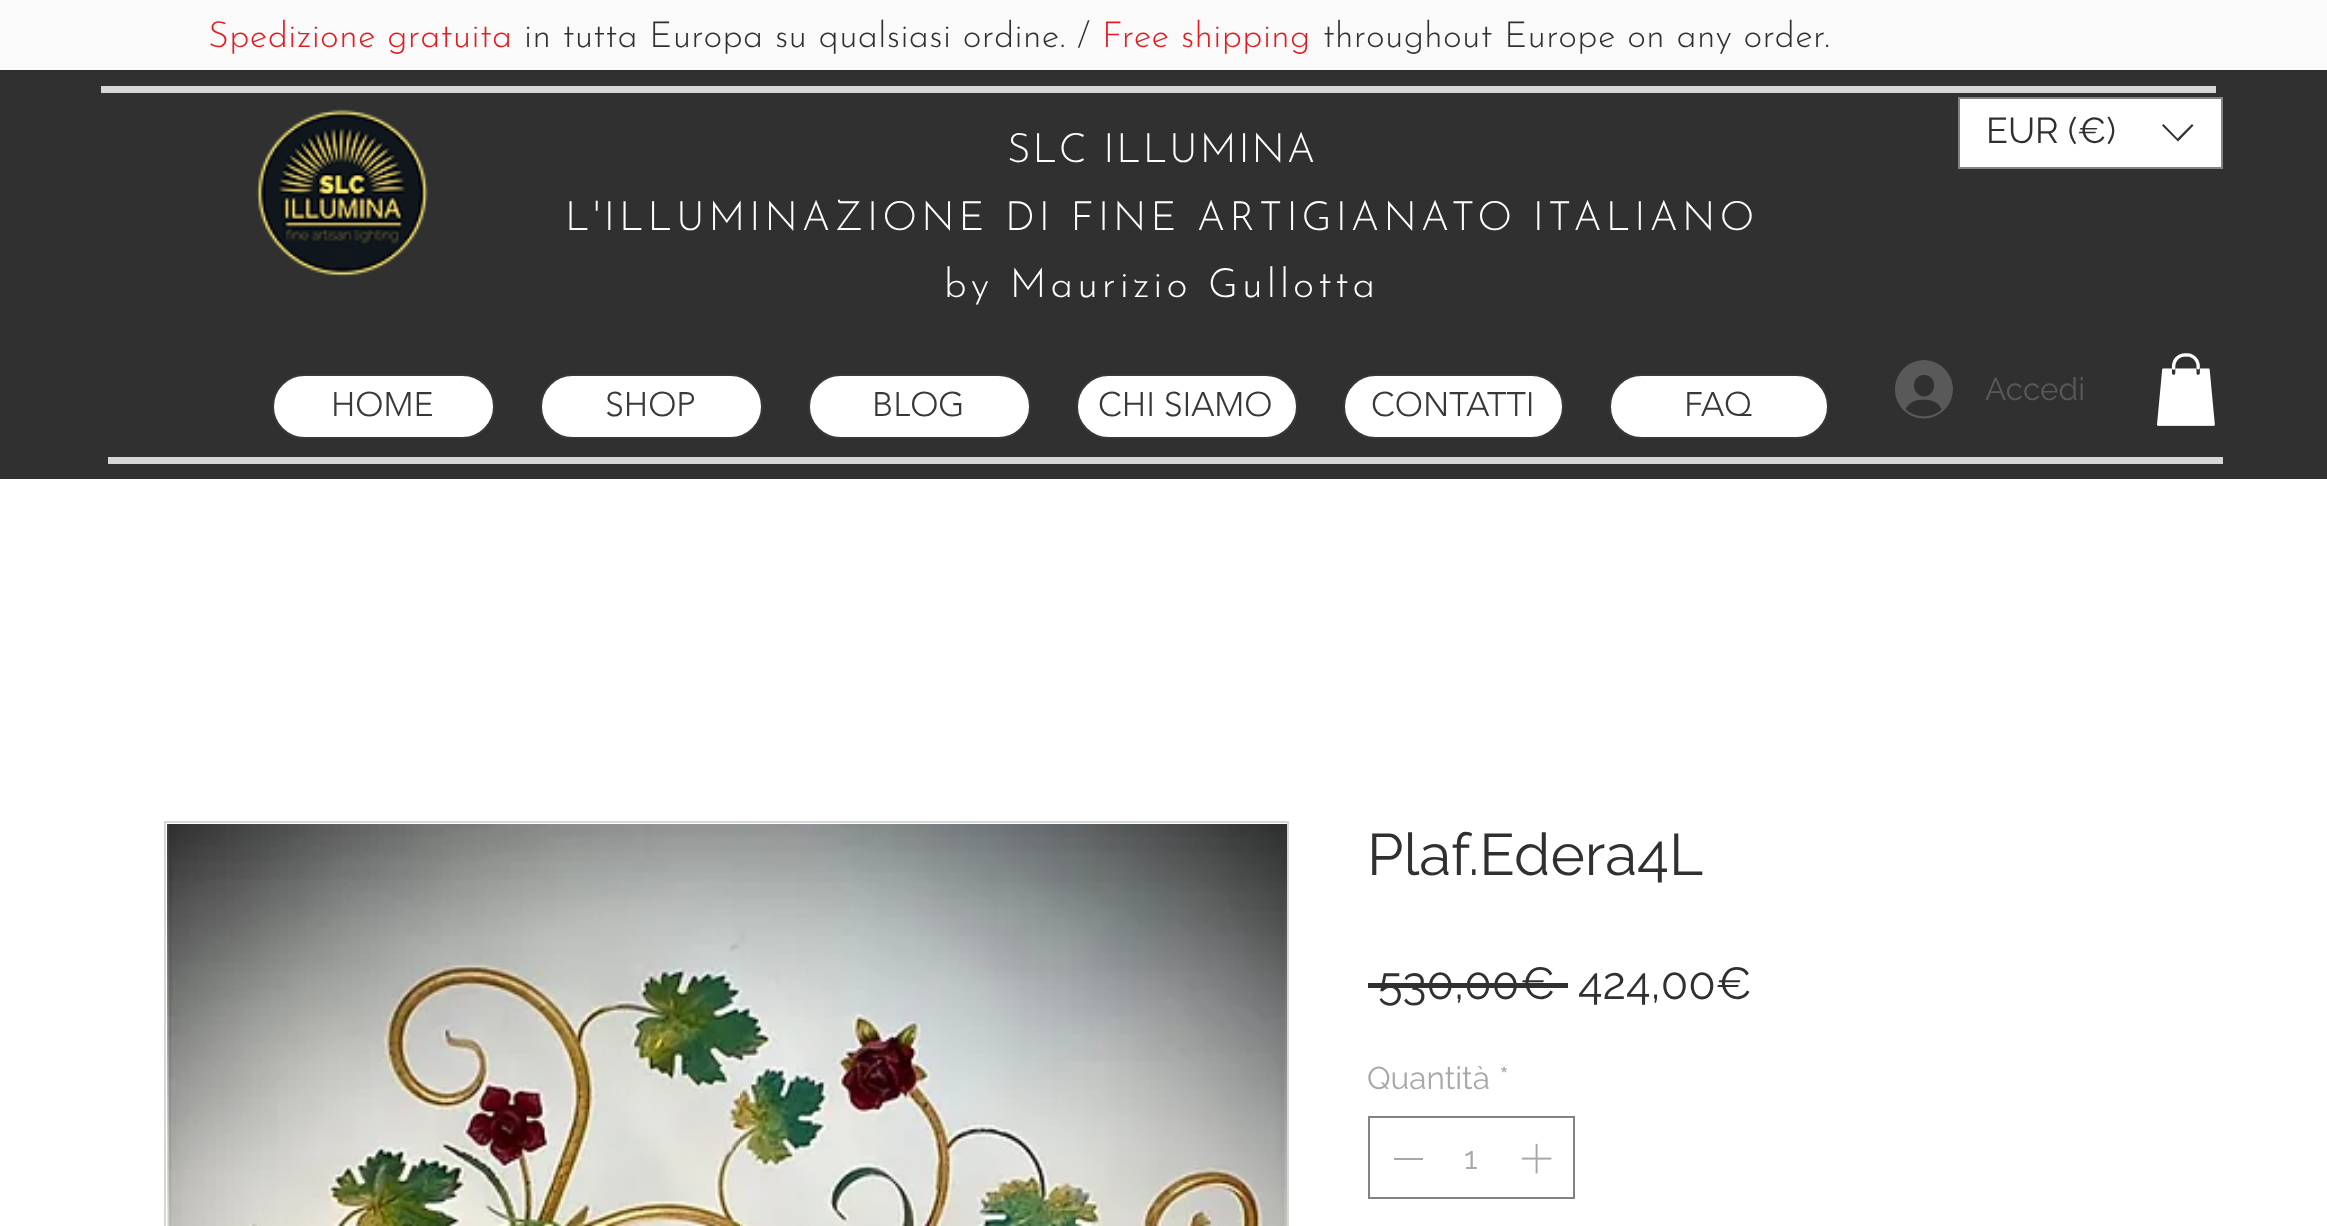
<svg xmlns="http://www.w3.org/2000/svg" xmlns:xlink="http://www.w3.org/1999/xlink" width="2327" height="1226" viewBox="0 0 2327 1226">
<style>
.cls-1{font:100 36px Josefin Sans;letter-spacing:0.35px;fill:#e21c21}
.cls-2{font:100 36px Josefin Sans;letter-spacing:0.35px;fill:#303030}
.cls-3{font:100 40.5px Josefin Sans;letter-spacing:2px;fill:#ffffff}
.cls-4{font:100 40.5px Josefin Sans;letter-spacing:4.05px;fill:#ffffff}
.cls-5{font:36px Raleway;fill:#303030}
.cls-6{font:300 33.75px 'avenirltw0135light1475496';fill:#383838}
.cls-7{font:31.5px Raleway;fill:#595959}
.cls-8{font:58.5px Raleway;fill:#303030}
.cls-9{font:45px Raleway;fill:#303030}
.cls-10{font:31.5px Raleway;fill:#a8a8a8}
</style>
<rect width="100%" height="100%" fill="#ffffff"/>
<rect fill="#fafafa" x="0" y="0" width="2327" height="70"/>
<rect fill="#303030" x="0" y="70" width="2327" height="409"/>
<rect fill="#d6d6d6" x="101" y="86" width="2115" height="7"/>
<image xlink:href="image0.png" x="256" y="109" width="172" height="168"/>
<rect fill="#ffffff" stroke="#838383" stroke-width="2" x="1959" y="98" width="263" height="70"/>
<path fill="#303030" fill-rule="evenodd" d="M2192 124L2193.5 125.5L2178 141.5L2162 125.5L2163.5 124L2177.5 138.5Z"/>
<rect fill="#ffffff" stroke="#383838" stroke-width="2" x="273" y="375" width="221" height="63" rx="31.5"/>
<rect fill="#ffffff" stroke="#383838" stroke-width="2" x="541" y="375" width="221" height="63" rx="31.5"/>
<rect fill="#ffffff" stroke="#383838" stroke-width="2" x="809" y="375" width="221" height="63" rx="31.5"/>
<rect fill="#ffffff" stroke="#383838" stroke-width="2" x="1077" y="375" width="220" height="63" rx="31.5"/>
<rect fill="#ffffff" stroke="#383838" stroke-width="2" x="1344" y="375" width="219" height="63" rx="31.5"/>
<rect fill="#ffffff" stroke="#383838" stroke-width="2" x="1610" y="375" width="218" height="63" rx="31.5"/>
<image xlink:href="image1.png" x="1895" y="360" width="58" height="59"/>
<image xlink:href="image2.png" x="2157" y="353" width="58" height="73"/>
<rect fill="#d6d6d6" x="108" y="457" width="2115" height="7"/>
<rect fill="none" stroke="#d6d6d6" stroke-width="2" x="165" y="822" width="1123" height="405"/>
<image xlink:href="image3.png" x="167" y="824" width="1120" height="402"/>
<rect fill="#303030" x="1368" y="983" width="200" height="5"/>
<rect fill="none" stroke="#838383" stroke-width="2" x="1369" y="1117" width="205" height="81"/>
<rect fill="#a8a8a8" x="1394" y="1158" width="29" height="2"/>
<image xlink:href="image4.png" x="1521" y="1143" width="31" height="31"/>
<text class="cls-1" x="208" y="47">Spedizione gratuita</text>
<text class="cls-2" x="524" y="47">in tutta Europa su qualsiasi ordine. /</text>
<text class="cls-1" x="1102" y="47">Free shipping</text>
<text class="cls-2" x="1323" y="47">throughout Europe on any order.</text>
<text class="cls-3" x="1007" y="162">SLC ILLUMINA</text>
<text class="cls-4" x="565" y="230">L'ILLUMINAZIONE DI FINE ARTIGIANATO ITALIANO</text>
<text class="cls-4" x="944" y="297">by Maurizio Gullotta</text>
<text class="cls-5" x="1986" y="143">EUR (€)</text>
<text class="cls-6" x="331" y="416">HOME</text>
<text class="cls-6" x="605" y="416">SHOP</text>
<text class="cls-6" x="872" y="416">BLOG</text>
<text class="cls-6" x="1098" y="416">CHI SIAMO</text>
<text class="cls-6" x="1371" y="416">CONTATTI</text>
<text class="cls-6" x="1684" y="416">FAQ</text>
<text class="cls-7" x="1985" y="400">Accedi</text>
<text class="cls-8" x="1367" y="875">Plaf.Edera4L</text>
<text class="cls-9" x="1378" y="999">530,00€</text>
<text class="cls-9" x="1578" y="999">424,00€</text>
<text class="cls-10" x="1367" y="1089">Quantità</text>
<text class="cls-10" x="1499" y="1089">*</text>
<text class="cls-10" x="1464" y="1169">1</text>
</svg>
